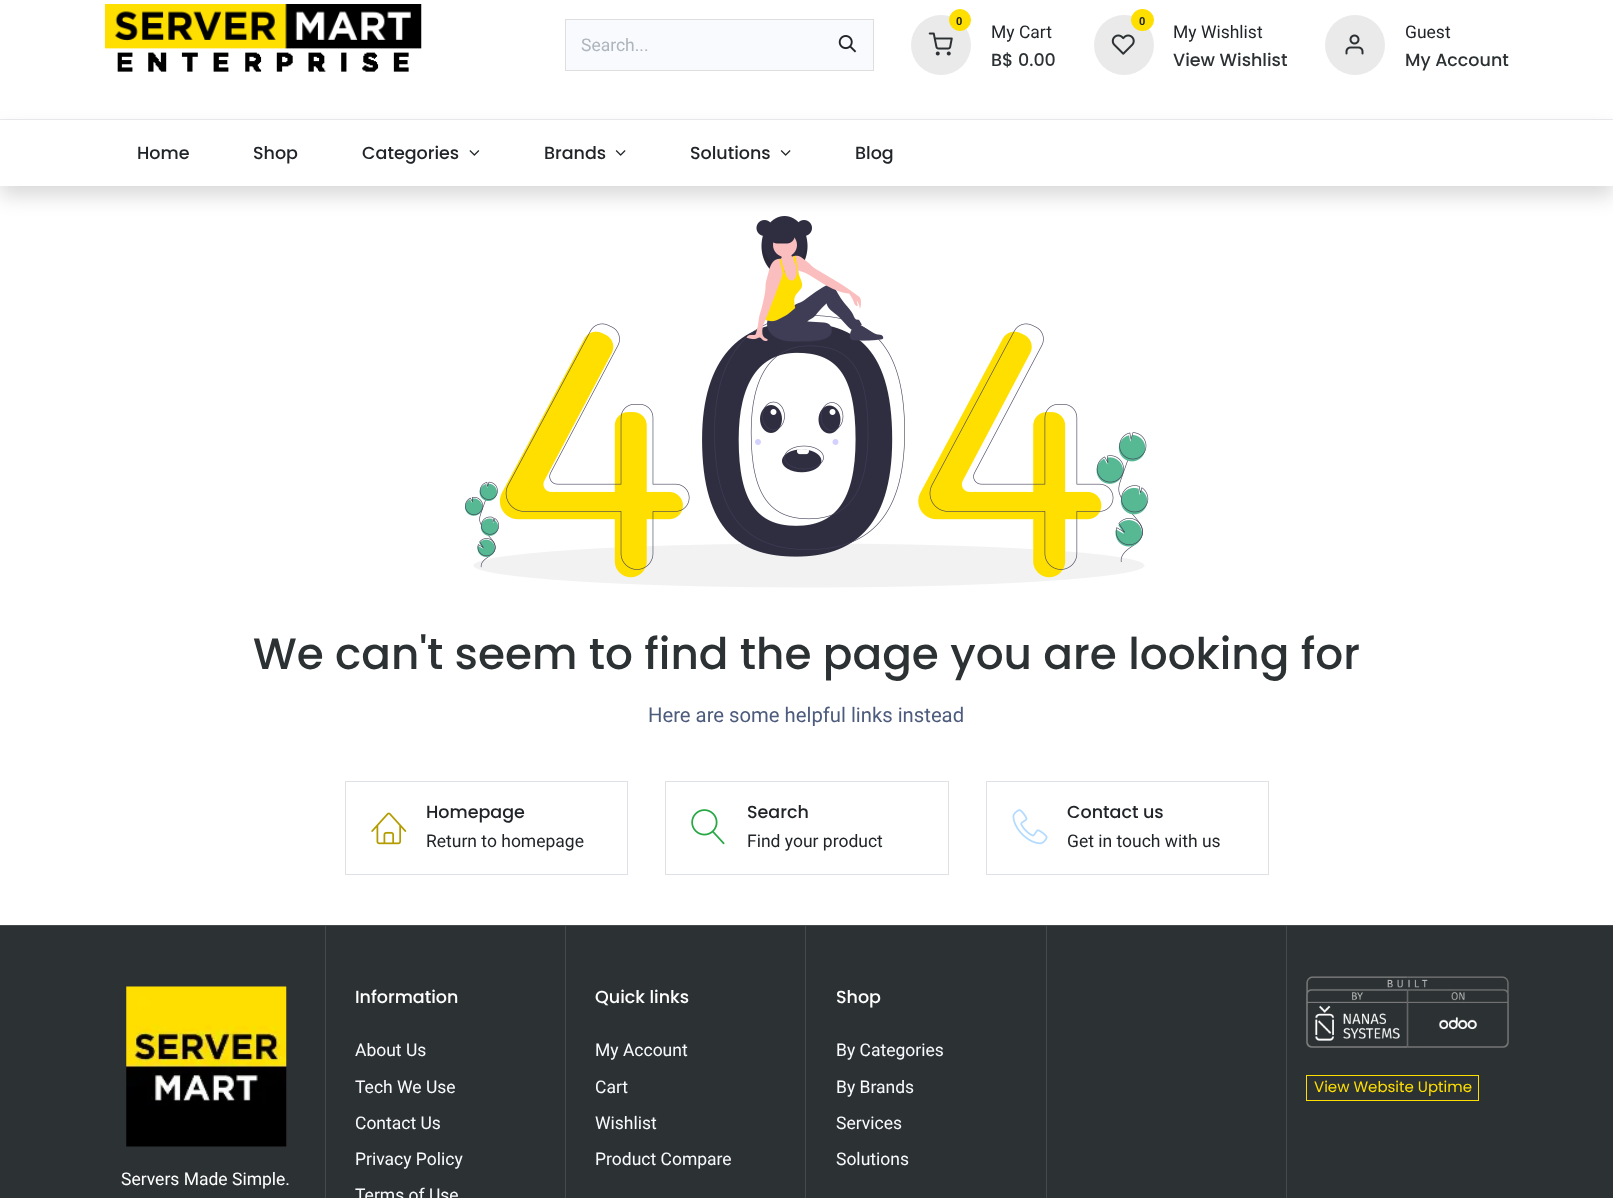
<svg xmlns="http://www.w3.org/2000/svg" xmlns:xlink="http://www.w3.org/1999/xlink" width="1613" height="1198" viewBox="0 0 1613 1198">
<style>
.cls-1{font:17.5px Roboto;fill:#adb5bd}
.cls-2{font:bold 11px Roboto;fill:#212529}
.cls-3{font:17.5px Roboto;fill:#212529}
.cls-4{font:500 17.5px Poppins;fill:#2c3133}
.cls-5{font:500 17.5px Poppins;fill:#212529}
.cls-6{font:500 43.75px Poppins;fill:#2c3133}
.cls-7{font:20.25px Roboto;fill:#4d5b7c}
.cls-8{font:500 17.5px Poppins;fill:#ffffff}
.cls-9{font:17.5px Roboto;fill:#f9fafe}
.cls-10{font:15px Poppins;fill:#ffdf00}
.cls-11{font:17.5px Roboto;fill:#ffffff}
</style>
<defs>
<clipPath id="clip1"><path d="M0 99H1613V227H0ZM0 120H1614V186H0Z" clip-rule="evenodd"/></clipPath>
</defs>
<rect width="100%" height="100%" fill="#ffffff"/>
<rect fill="#eaebef" x="0" y="119" width="1613" height="1"/>
<image xlink:href="image0.png" x="105" y="4" width="317" height="68"/>
<rect fill="none" stroke="#dededf" x="565.5" y="19.5" width="308" height="51"/>
<rect fill="#f9fafe" x="566" y="20" width="307" height="50"/>
<image xlink:href="image1.png" x="838" y="35" width="19" height="18"/>
<circle fill="#eaeaeb" cx="941" cy="45" r="30"/>
<image xlink:href="image2.png" x="928" y="32" width="25" height="24"/>
<circle fill="#ffdf00" stroke="#ffdf00" cx="960" cy="20" r="10.5"/>
<circle fill="#eaeaeb" cx="1124" cy="45" r="30"/>
<image xlink:href="image3.png" x="1111" y="34" width="24" height="21"/>
<rect fill="#ffdf00" stroke="#ffdf00" x="1131.5" y="9.5" width="22" height="21" rx="10.5"/>
<circle fill="#eaeaeb" cx="1355" cy="45" r="30"/>
<image xlink:href="image4.png" x="1345" y="34" width="19" height="21"/>
<image xlink:href="image7.png" x="465" y="216" width="684" height="372"/>
<g clip-path="url(#clip1)">
<rect fill="#000000" fill-opacity="0.15" filter="blur(10px)" x="0" y="130" width="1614" height="66"/>
</g>
<image xlink:href="image5.png" x="469" y="150" width="11" height="6"/>
<image xlink:href="image6.png" x="615" y="150" width="11" height="6"/>
<image xlink:href="image6.png" x="780" y="150" width="11" height="6"/>
<rect fill="none" stroke="#dee2e6" x="345.5" y="781.5" width="282" height="93"/>
<image xlink:href="image8.png" x="371" y="812" width="36" height="33"/>
<rect fill="none" stroke="#dee2e6" x="665.5" y="781.5" width="283" height="93"/>
<image xlink:href="image9.png" x="691" y="809" width="34" height="36"/>
<rect fill="none" stroke="#dee2e6" x="986.5" y="781.5" width="282" height="93"/>
<image xlink:href="image10.png" x="1012" y="809" width="36" height="36"/>
<rect fill="#2c3133" x="0" y="926" width="1613" height="272"/>
<rect fill="#454a4b" x="0" y="925" width="1613" height="1"/>
<rect fill="#454a4b" x="565" y="926" width="1" height="272"/>
<rect fill="#454a4b" x="805" y="926" width="1" height="272"/>
<rect fill="#454a4b" x="1046" y="926" width="1" height="272"/>
<rect fill="#454a4b" x="1286" y="926" width="1" height="272"/>
<image xlink:href="image11.png" x="1306" y="976" width="102" height="72"/>
<image xlink:href="image12.png" x="1407" y="976" width="102" height="72"/>
<rect fill="none" stroke="#ffdf00" x="1306.5" y="1075.5" width="172" height="25"/>
<rect fill="#454a4b" x="325" y="926" width="1" height="272"/>
<image xlink:href="image13.png" x="126" y="986" width="161" height="161"/>
<text class="cls-1" x="581" y="51">Search...</text>
<text class="cls-2" x="956" y="25">0</text>
<text class="cls-3" x="991" y="38">My Cart</text>
<text class="cls-4" x="991" y="66">B$ 0.00</text>
<text class="cls-2" x="1139" y="25">0</text>
<text class="cls-3" x="1173" y="38">My Wishlist</text>
<text class="cls-4" x="1173" y="66">View Wishlist</text>
<text class="cls-3" x="1405" y="38">Guest</text>
<text class="cls-4" x="1405" y="66">My Account</text>
<text class="cls-5" x="137" y="159">Home</text>
<text class="cls-5" x="253" y="159">Shop</text>
<text class="cls-5" x="362" y="159">Categories</text>
<text class="cls-5" x="544" y="159">Brands</text>
<text class="cls-5" x="690" y="159">Solutions</text>
<text class="cls-5" x="855" y="159">Blog</text>
<text class="cls-6" x="253" y="669">We can't seem to find the page you are looking for</text>
<text class="cls-7" x="648" y="722">Here are some helpful links instead</text>
<text class="cls-5" x="426" y="818">Homepage</text>
<text class="cls-3" x="426" y="847">Return to homepage</text>
<text class="cls-5" x="747" y="818">Search</text>
<text class="cls-3" x="747" y="847">Find your product</text>
<text class="cls-5" x="1067" y="818">Contact us</text>
<text class="cls-3" x="1067" y="847">Get in touch with us</text>
<text class="cls-8" x="355" y="1003">Information</text>
<text class="cls-9" x="355" y="1056">About Us</text>
<text class="cls-9" x="355" y="1093">Tech We Use</text>
<text class="cls-9" x="355" y="1129">Contact Us</text>
<text class="cls-9" x="355" y="1165">Privacy Policy</text>
<text class="cls-9" x="355" y="1201">Terms of Use</text>
<text class="cls-8" x="595" y="1003">Quick links</text>
<text class="cls-9" x="595" y="1056">My Account</text>
<text class="cls-9" x="595" y="1093">Cart</text>
<text class="cls-9" x="595" y="1129">Wishlist</text>
<text class="cls-9" x="595" y="1165">Product Compare</text>
<text class="cls-8" x="836" y="1003">Shop</text>
<text class="cls-9" x="836" y="1056">By Categories</text>
<text class="cls-9" x="836" y="1093">By Brands</text>
<text class="cls-9" x="836" y="1129">Services</text>
<text class="cls-9" x="836" y="1165">Solutions</text>
<text class="cls-10" x="1314" y="1092">View Website Uptime</text>
<text class="cls-11" x="121" y="1185">Servers Made Simple.</text>
</svg>
